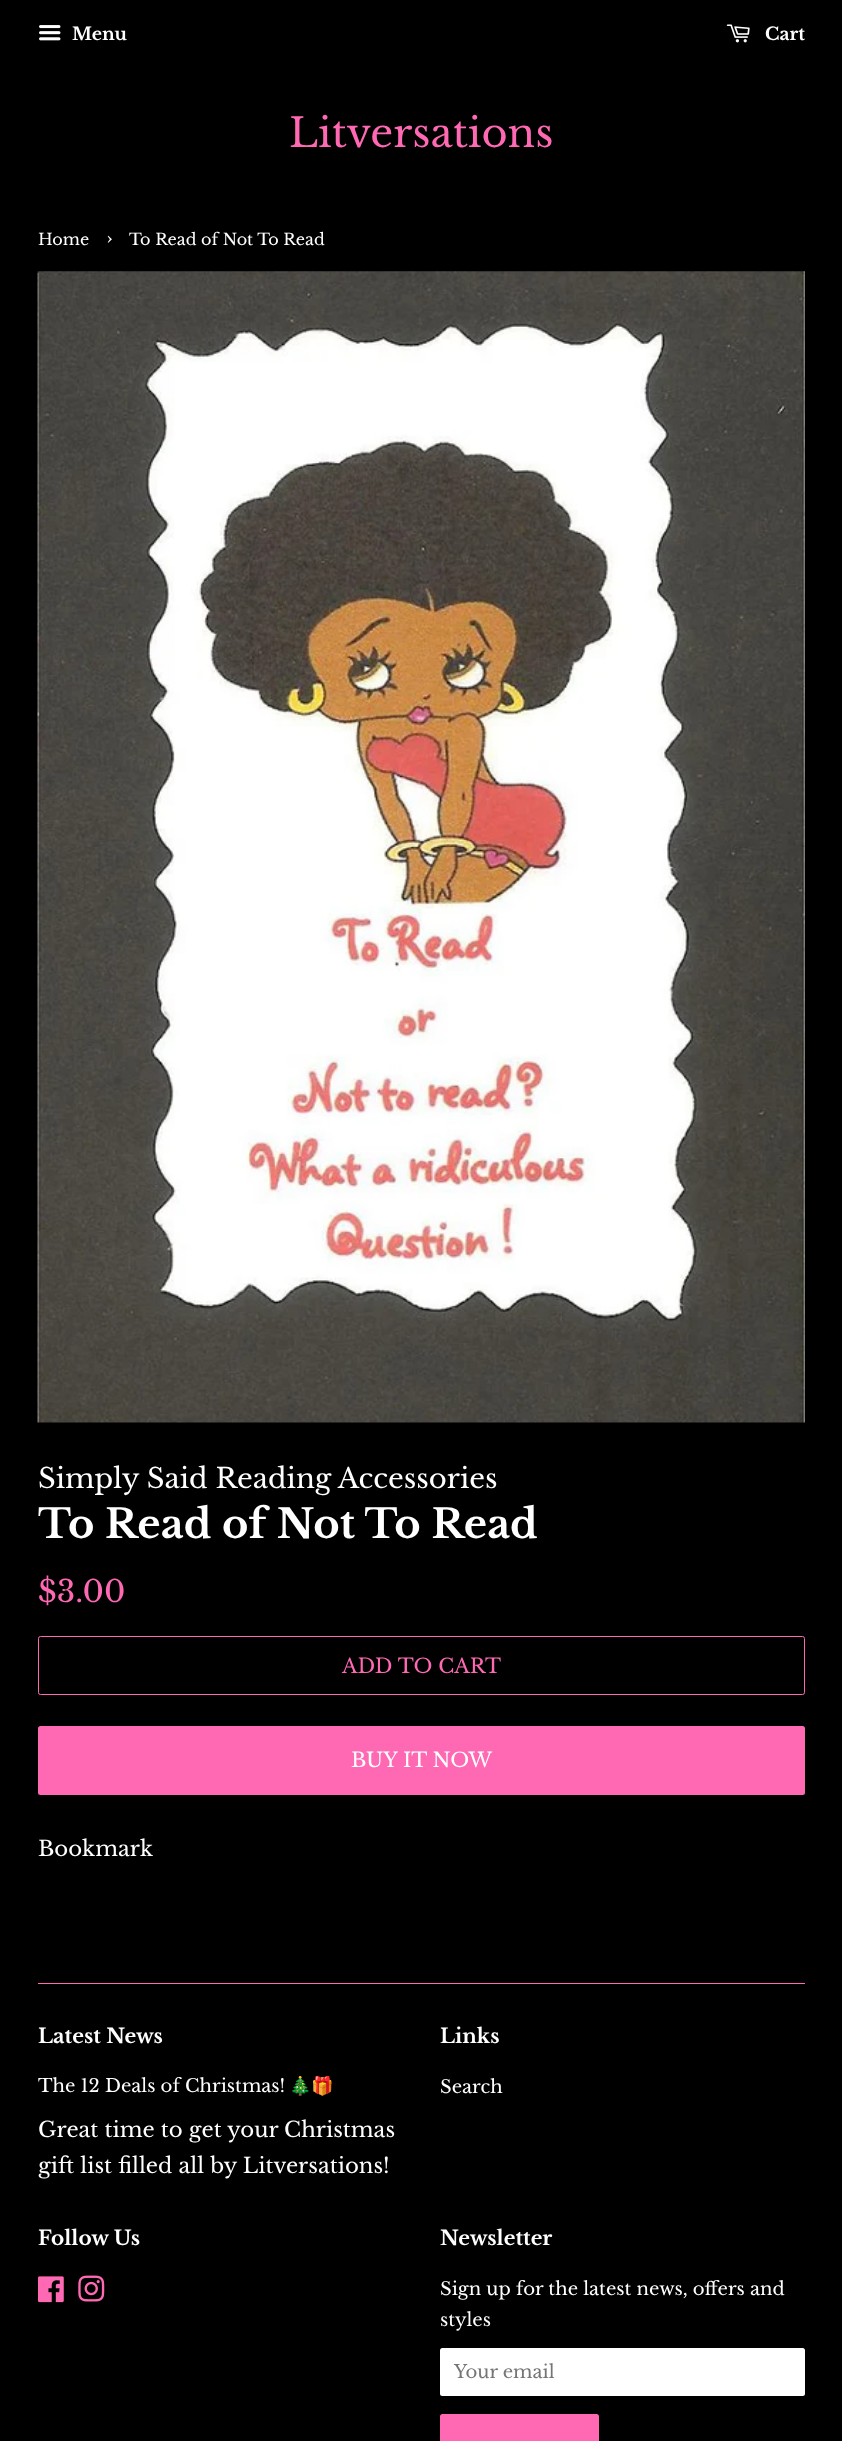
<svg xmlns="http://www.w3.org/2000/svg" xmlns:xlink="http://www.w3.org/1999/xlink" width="842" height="2441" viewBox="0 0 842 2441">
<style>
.cls-1{font:bold 17.5px Libre Baskerville;fill:#ffffff}
.cls-2{font:40px Libre Baskerville;fill:#ff69b4}
.cls-3{font:16px Libre Baskerville;fill:#ffffff}
.cls-4{font:22px Libre Baskerville;fill:#ffffff}
.cls-5{font:27.5px Libre Baskerville;fill:#ffffff}
.cls-6{font:bold 40px Libre Baskerville;fill:#ffffff}
.cls-7{font:30px Libre Baskerville;fill:#ff69b4}
.cls-8{font:20px Libre Baskerville;fill:#ff69b4}
.cls-9{font:20px Libre Baskerville;fill:#ffffff}
.cls-10{font:21.25px Libre Baskerville;fill:#ffffff}
.cls-11{font:bold 20px Libre Baskerville;fill:#ffffff}
.cls-12{font:18.1px Libre Baskerville;fill:#ffffff}
.cls-13{font:18.1px Noto Color Emoji;fill:#ffffff}
.cls-14{font:18.1px Libre Baskerville;fill:#757575}
</style>
<rect width="100%" height="100%" fill="#000000"/>
<image xlink:href="image0.png" x="39" y="25" width="22" height="16"/>
<image xlink:href="image1.png" x="726" y="24" width="24" height="19"/>
<image xlink:href="image2.png" x="37" y="271" width="768" height="1152"/>
<rect fill="none" stroke="#ff69b4" x="38.5" y="1636.5" width="766" height="58" rx="2"/>
<rect fill="#ff69b4" x="38" y="1726" width="767" height="69" rx="2.5"/>
<rect fill="#ff69b4" x="38" y="1983" width="767" height="1"/>
<image xlink:href="image3.png" x="38" y="2276" width="26" height="27"/>
<image xlink:href="image4.png" x="78" y="2275" width="27" height="27"/>
<rect fill="#ffffff" x="440" y="2348" width="365" height="48" rx="2.5"/>
<rect fill="none" stroke="#ffffff" stroke-opacity="0.15" x="440.5" y="2348.5" width="364" height="47" rx="2"/>
<rect fill="#ff69b4" x="440" y="2414" width="159" height="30" rx="2.5"/>
<text class="cls-1" x="72" y="40">Menu</text>
<text class="cls-1" x="765" y="40">Cart</text>
<text class="cls-2" x="289" y="147">Litversations</text>
<text class="cls-3" x="38" y="245">Home</text>
<text class="cls-4" x="106" y="245">›</text>
<text class="cls-3" x="129" y="245">To Read of Not To Read</text>
<text class="cls-5" x="38" y="1488">Simply Said Reading Accessories</text>
<text class="cls-6" x="38" y="1538">To Read of Not To Read</text>
<text class="cls-7" x="38" y="1602">$3.00</text>
<text class="cls-8" x="342" y="1673">ADD TO CART</text>
<text class="cls-9" x="351" y="1767">BUY IT NOW</text>
<text class="cls-10" x="38" y="1856">Bookmark</text>
<text class="cls-11" x="38" y="2043">Latest News</text>
<text class="cls-12" x="38" y="2092">The 12 Deals of Christmas!</text>
<text class="cls-13" x="289" y="2092">🎄🎁</text>
<text class="cls-10"><tspan x="38" y="2137">Great time to get your Christmas</tspan><tspan x="38" y="2173">gift list filled all by Litversations!</tspan></text>
<text class="cls-11" x="440" y="2043">Links</text>
<text class="cls-12" x="440" y="2093">Search</text>
<text class="cls-11" x="38" y="2245">Follow Us</text>
<text class="cls-11" x="440" y="2245">Newsletter</text>
<text class="cls-12"><tspan x="440" y="2295">Sign up for the latest news, offers and</tspan><tspan x="440" y="2326">styles</tspan></text>
<text class="cls-14" x="454" y="2378">Your email</text>
</svg>
